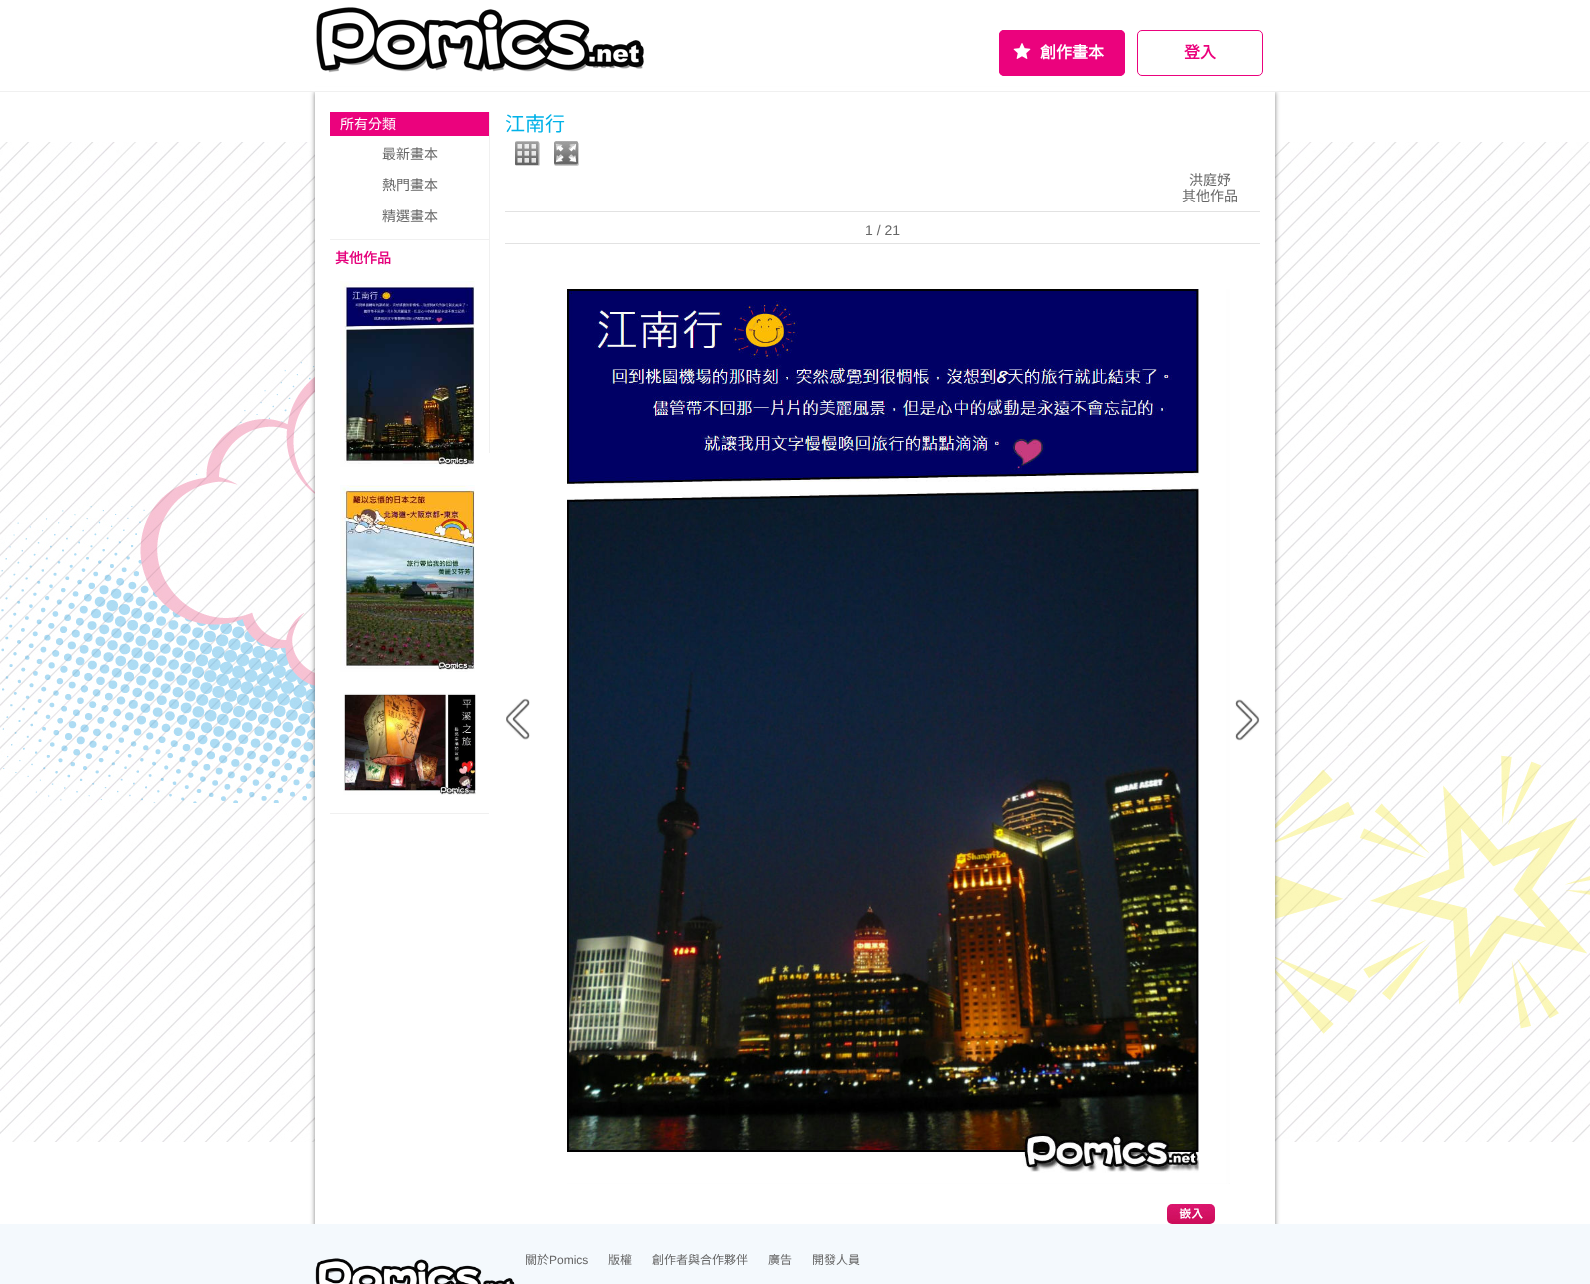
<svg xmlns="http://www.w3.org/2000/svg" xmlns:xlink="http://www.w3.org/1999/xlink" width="1590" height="1284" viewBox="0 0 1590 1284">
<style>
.cls-1{font:bold 16px Noto Sans CJK TC;fill:#ffffff}
.cls-2{font:bold 16px Noto Sans CJK TC;fill:#eb027d}
.cls-3{font:14px Noto Sans CJK TC;fill:#ffffff}
.cls-4{font:14px Noto Sans CJK TC;fill:#666666}
.cls-5{font:bold 14px Noto Sans CJK TC;fill:#e5017c}
.cls-6{font:20px Noto Sans CJK TC;fill:#01b2e8}
.cls-7{font:14px Liberation Sans;fill:#666666}
.cls-8{font:12px Noto Sans CJK TC;fill:#666666}
.cls-9{font:12px Liberation Sans;fill:#666666}
</style>
<rect width="100%" height="100%" fill="#ffffff"/>
<image xlink:href="image0.png" x="0" y="142" width="1590" height="1000"/>
<rect fill="#000000" fill-opacity="0.5" filter="blur(2.5px)" x="315" y="92" width="960" height="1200"/>
<rect fill="#ffffff" x="311" y="87" width="968" height="4"/>
<rect fill="#f0f0f0" x="0" y="91" width="1590" height="1"/>
<image xlink:href="image1.png" x="316" y="7" width="328" height="66"/>
<rect fill="#eb027d" x="999" y="30" width="126" height="46" rx="5"/>
<image xlink:href="image2.png" x="1013" y="43" width="18" height="16"/>
<rect fill="none" stroke="#eb027d" x="999.5" y="30.5" width="125" height="45" rx="4.5"/>
<rect fill="none" stroke="#eb027d" x="1137.5" y="30.5" width="125" height="45" rx="4.5"/>
<rect fill="#ffffff" x="315" y="92" width="960" height="1132"/>
<rect fill="#f0f0f0" x="489" y="112" width="1" height="341"/>
<rect fill="#f0f0f0" x="330" y="239" width="159" height="1"/>
<rect fill="#eb027d" x="330" y="112" width="159" height="24"/>
<rect fill="#f0f0f0" x="330" y="813" width="159" height="1"/>
<image xlink:href="image3.png" x="340" y="281" width="135" height="186"/>
<image xlink:href="image4.png" x="340" y="485" width="135" height="187"/>
<image xlink:href="image5.png" x="343" y="693" width="133" height="102"/>
<rect fill="#e2e2e2" x="505" y="211" width="755" height="1"/>
<image xlink:href="image6.png" x="515" y="141" width="25" height="25"/>
<image xlink:href="image7.png" x="554" y="141" width="25" height="25"/>
<rect fill="#e2e2e2" x="505" y="243" width="755" height="1"/>
<image xlink:href="image8.png" x="506" y="698" width="24" height="42"/>
<image xlink:href="image9.png" x="567" y="289" width="663" height="895"/>
<image xlink:href="image10.png" x="1235" y="699" width="25" height="42"/>
<image xlink:href="image11.png" x="1167" y="1204" width="48" height="20"/>
<rect fill="#f4f9fd" x="0" y="1224" width="1590" height="60"/>
<image xlink:href="image12.png" x="315" y="1258" width="200" height="26"/>
<text class="cls-1" x="1040" y="58">創作畫本</text>
<text class="cls-2" x="1184" y="58">登入</text>
<text class="cls-3" x="340" y="129">所有分類</text>
<text class="cls-4" x="382" y="159">最新畫本</text>
<text class="cls-4" x="382" y="190">熱門畫本</text>
<text class="cls-4" x="382" y="221">精選畫本</text>
<text class="cls-5" x="335" y="263">其他作品</text>
<text class="cls-6" x="505" y="131">江南行</text>
<text class="cls-4" x="1189" y="185">洪庭妤</text>
<text class="cls-4" x="1182" y="201">其他作品</text>
<text class="cls-7" x="865" y="235">1 / 21</text>
<text class="cls-8" x="525" y="1264">關於</text>
<text class="cls-9" x="549" y="1264">Pomics</text>
<text class="cls-8" x="608" y="1264">版權</text>
<text class="cls-8" x="652" y="1264">創作者與合作夥伴</text>
<text class="cls-8" x="768" y="1264">廣告</text>
<text class="cls-8" x="812" y="1264">開發人員</text>
</svg>
